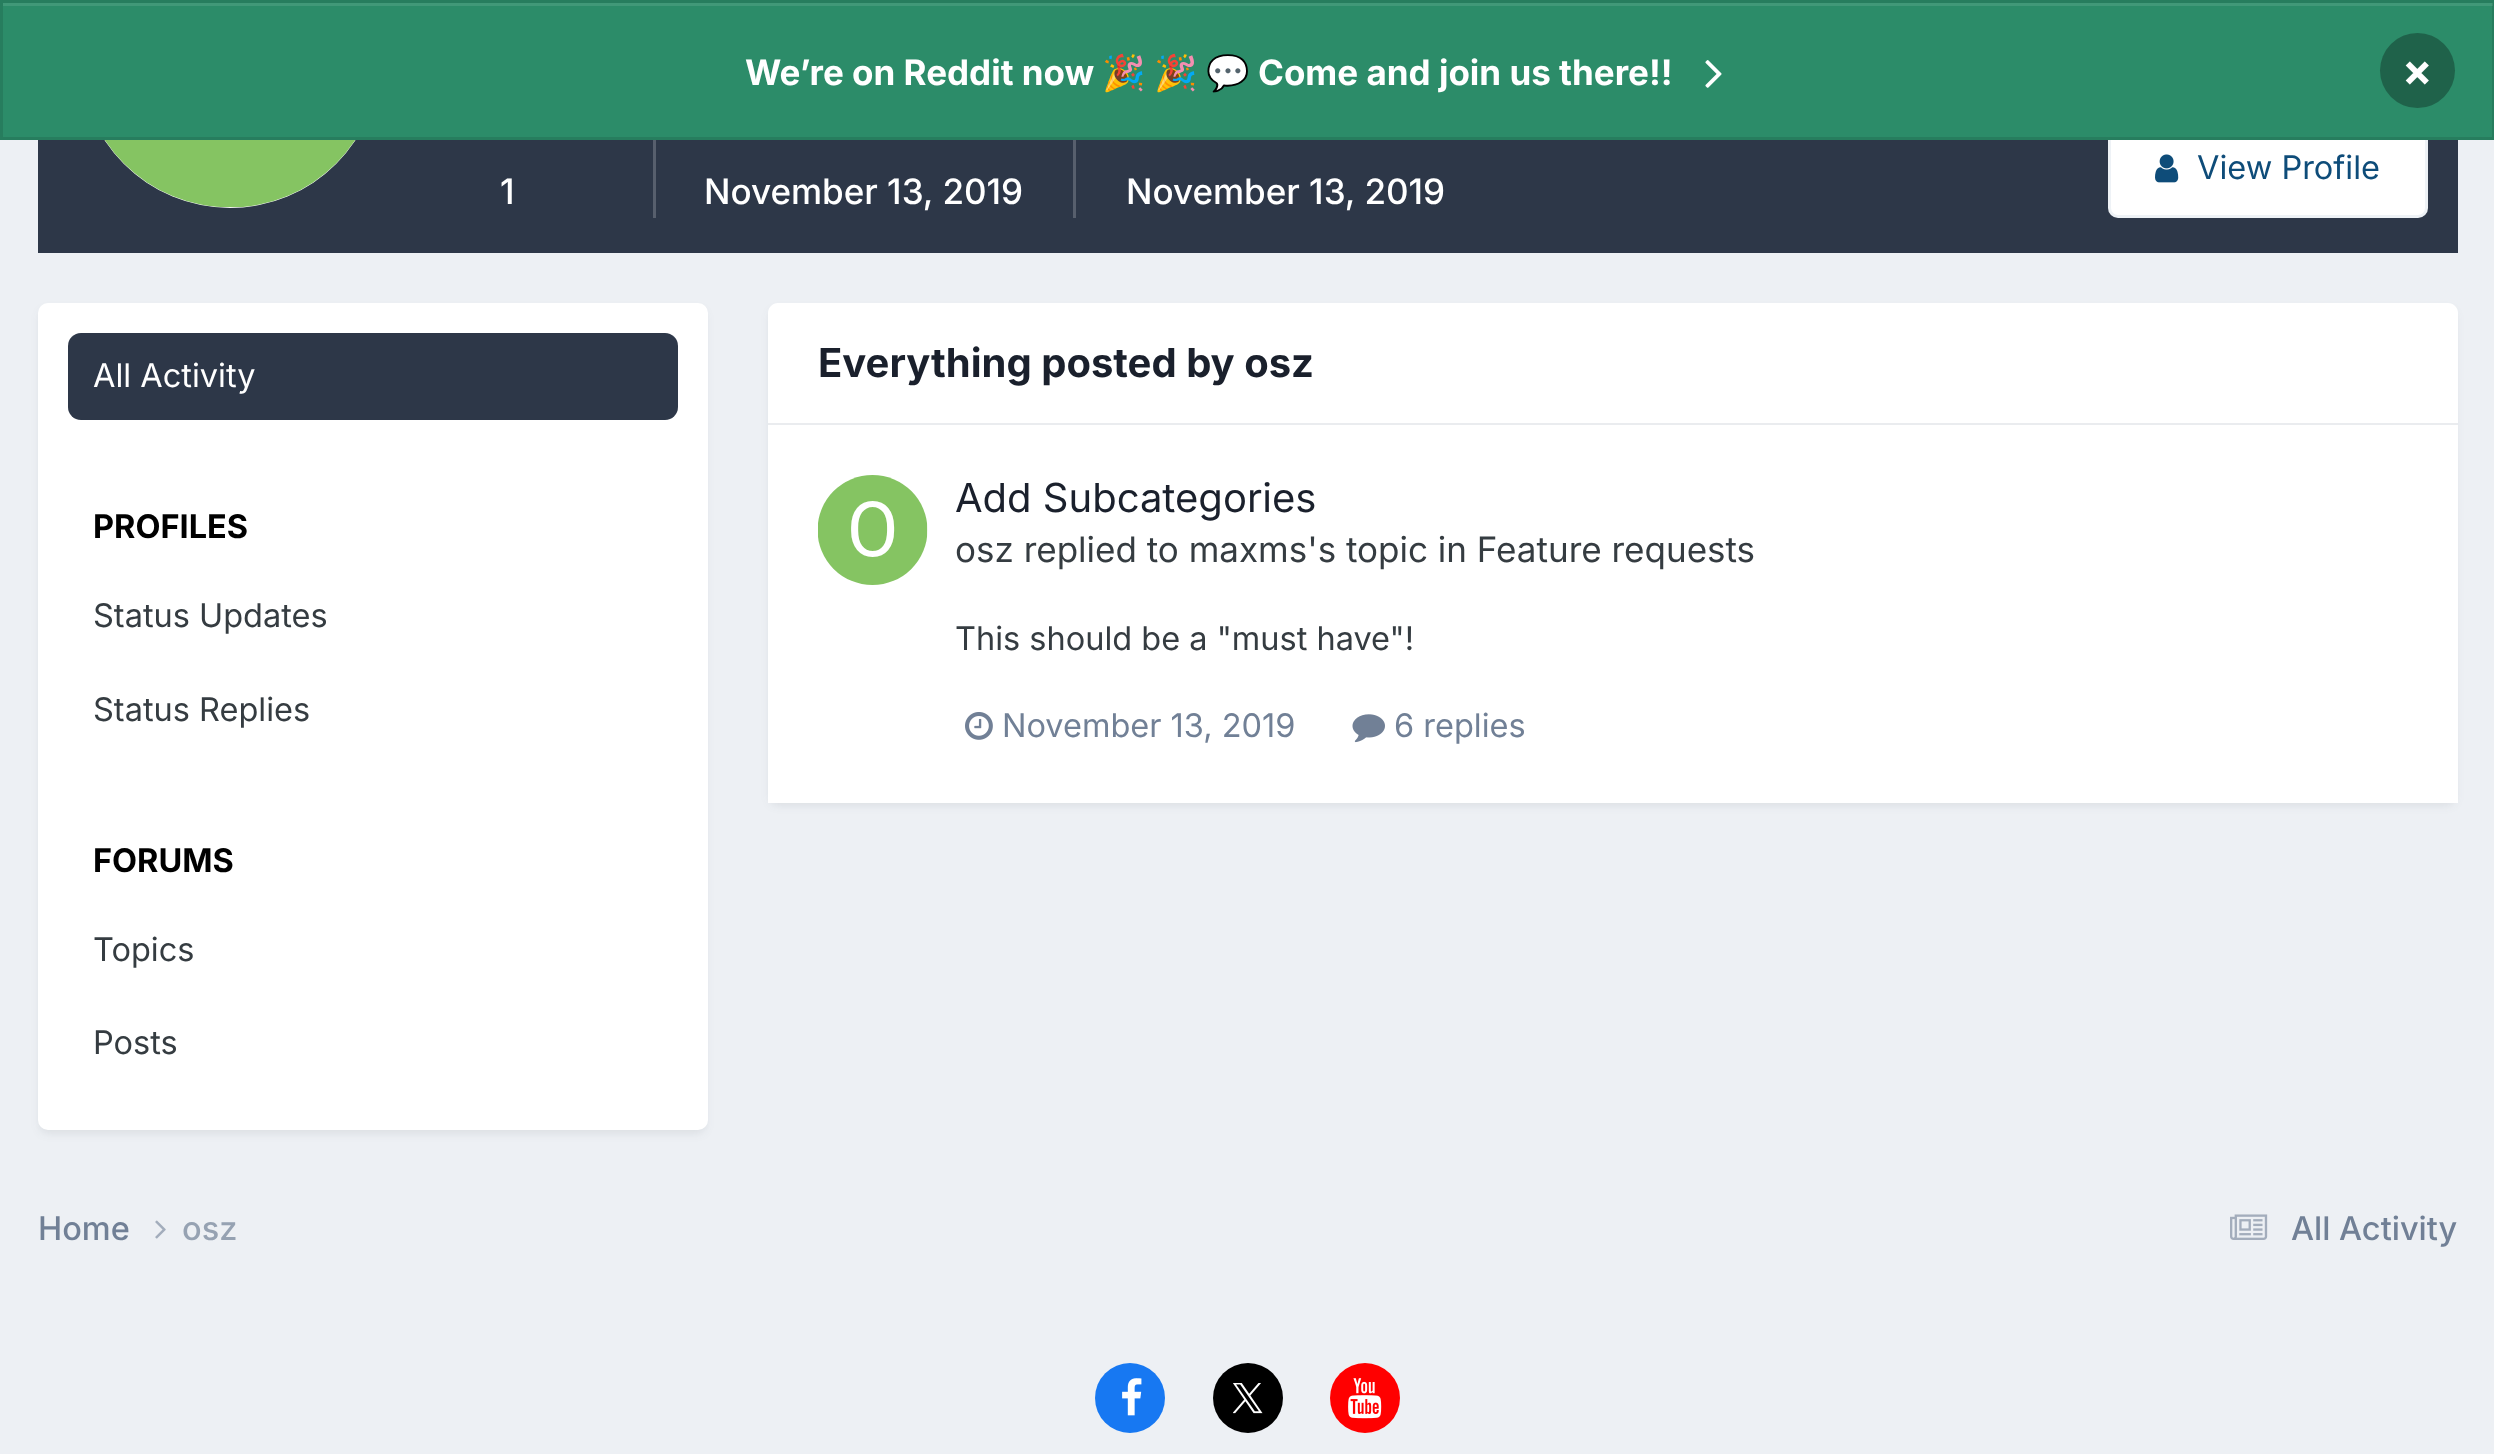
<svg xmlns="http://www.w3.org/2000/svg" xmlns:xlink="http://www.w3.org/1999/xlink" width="2494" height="1454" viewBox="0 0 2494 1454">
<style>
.cls-1{font:bold 35px Inter;fill:#ffffff}
.cls-2{font:bold 35px Noto Color Emoji;fill:#ffffff}
.cls-3{font:bold 45px Inter;fill:#ffffff}
.cls-4{font:32.5px Inter;fill:#0e4c79}
.cls-5{font:500 35px Inter;fill:#ffffff}
.cls-6{font:32.5px Inter;fill:#ffffff}
.cls-7{font:bold 32.5px Inter;fill:#000000}
.cls-8{font:32.5px Inter;fill:#353c41}
.cls-9{font:bold 40px Inter;fill:#1a202c}
.cls-10{font:40px Inter;fill:#1a202c}
.cls-11{font:35px Inter;fill:#353c41}
.cls-12{font:32.5px Inter;fill:#718096}
.cls-13{font:500 32.5px Inter;fill:#718096}
.cls-14{font:500 32.5px Inter;fill:#96a2b2}
</style>
<rect width="100%" height="100%" fill="#edf0f4"/>
<rect fill="#2d3748" x="38" y="140" width="2420" height="113"/>
<circle fill="#ffffff" cx="230" cy="58" r="150"/>
<rect fill="#ffffff" x="2108" y="120" width="320" height="98" rx="10"/>
<rect fill="none" stroke="#0e4c79" stroke-opacity="0.07" stroke-width="3" x="2109.5" y="121.5" width="317" height="95" rx="8.5"/>
<rect fill="#2c8c69" x="0" y="0" width="2494" height="140"/>
<rect fill="#419878" x="3" y="3" width="2490" height="3"/>
<rect fill="none" stroke="#000000" stroke-opacity="0.1" stroke-width="3" x="1.5" y="1.5" width="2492" height="137"/>
<image xlink:href="image0.png" x="1705" y="60" width="17" height="28"/>
<circle fill="#1f624a" cx="2417.5" cy="70.5" r="37.5"/>
<image xlink:href="image1.png" x="104" y="140" width="252" height="68"/>
<image xlink:href="image2.png" x="2155" y="154" width="24" height="29"/>
<rect fill="#575f6d" x="653" y="140" width="3" height="78"/>
<rect fill="#575f6d" x="1073" y="140" width="3" height="78"/>
<rect fill="#2d3748" fill-opacity="0.1" filter="blur(5px)" x="40" y="310" width="665" height="823" rx="8"/>
<rect fill="#ffffff" x="38" y="303" width="670" height="827" rx="10"/>
<rect fill="#2d3748" x="68" y="333" width="610" height="87" rx="13"/>
<rect fill="#2d3748" fill-opacity="0.1" filter="blur(5px)" x="770" y="310" width="1685" height="495" rx="8"/>
<path fill="#ffffff" d="M778 303H2448C2453.5 303 2458 307.5 2458 313V425H768V313C768 307.5 772.5 303 778 303Z"/>
<rect fill="#eaecef" x="768" y="423" width="1690" height="2"/>
<rect fill="#ffffff" x="768" y="425" width="1690" height="378"/>
<image xlink:href="image3.png" x="818" y="475" width="110" height="110"/>
<image xlink:href="image4.png" x="965" y="712" width="28" height="28"/>
<image xlink:href="image5.png" x="1352" y="714" width="33" height="29"/>
<image xlink:href="image6.png" x="155" y="1220" width="11" height="19"/>
<image xlink:href="image7.png" x="2230" y="1214" width="38" height="26"/>
<circle fill="#1778f2" cx="1130" cy="1398" r="35"/>
<image xlink:href="image8.png" x="1122" y="1378" width="20" height="38"/>
<circle fill="#000000" cx="1248" cy="1398" r="35"/>
<image xlink:href="image9.png" x="1233" y="1383" width="30" height="31"/>
<circle fill="#ff0000" cx="1365" cy="1398" r="35"/>
<image xlink:href="image10.png" x="1348" y="1378" width="34" height="41"/>
<text class="cls-1" x="745" y="85">We’re on Reddit now</text>
<text class="cls-2" x="1102" y="85">🎉</text>
<text class="cls-2" x="1154" y="85">🎉</text>
<text class="cls-2" x="1206" y="85">💬</text>
<text class="cls-1" x="1258" y="85">Come and join us there!!</text>
<text class="cls-3" x="2402" y="86">×</text>
<text class="cls-4" x="2197" y="179">View Profile</text>
<text class="cls-5" x="500" y="204">1</text>
<text class="cls-5" x="704" y="204">November 13, 2019</text>
<text class="cls-5" x="1126" y="204">November 13, 2019</text>
<text class="cls-6" x="93" y="387">All Activity</text>
<text class="cls-7" x="93" y="538">PROFILES</text>
<text class="cls-8" x="93" y="627">Status Updates</text>
<text class="cls-8" x="93" y="721">Status Replies</text>
<text class="cls-7" x="93" y="872">FORUMS</text>
<text class="cls-8" x="93" y="961">Topics</text>
<text class="cls-8" x="93" y="1054">Posts</text>
<text class="cls-9" x="818" y="377">Everything posted by osz</text>
<text class="cls-10" x="955" y="512">Add Subcategories</text>
<text class="cls-11" x="955" y="562">osz replied to maxms's topic in Feature requests</text>
<text class="cls-8" x="955" y="650">This should be a "must have"!</text>
<text class="cls-12" x="1002" y="737">November 13, 2019</text>
<text class="cls-12" x="1394" y="737">6 replies</text>
<text class="cls-13" x="38" y="1240">Home</text>
<text class="cls-14" x="182" y="1240">osz</text>
<text class="cls-13" x="2291" y="1240">All Activity</text>
</svg>
